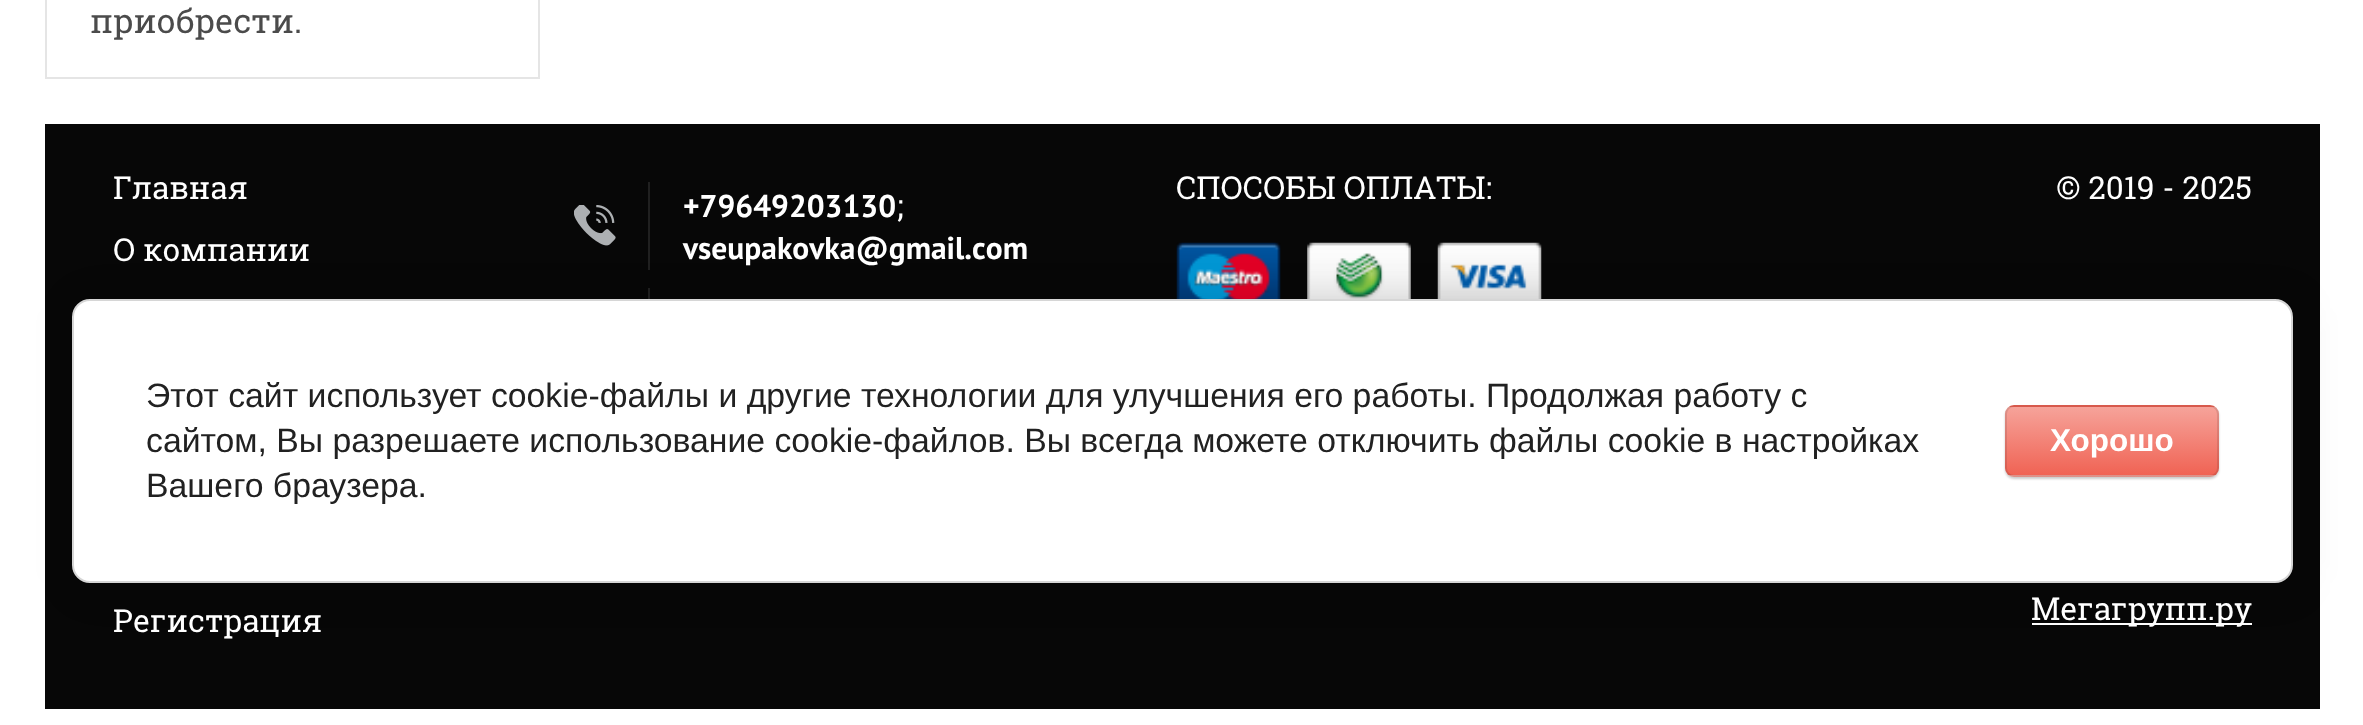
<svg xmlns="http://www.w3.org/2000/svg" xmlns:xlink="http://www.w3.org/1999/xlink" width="2363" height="725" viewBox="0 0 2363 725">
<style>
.cls-1{font:33.75px Roboto Slab;fill:#4b4b4b}
.cls-2{font:31.5px Roboto Slab;fill:#ffffff}
.cls-3{font:bold 31.5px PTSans;fill:#ffffff}
.cls-4{font:33.75px Liberation Sans;fill:#212121}
.cls-5{font:bold 31.5px Liberation Sans;fill:#ffffff}
</style>
<defs>
<clipPath id="clip1"><rect x="2005" y="405" width="214" height="72" rx="9"/></clipPath>
<linearGradient id="g1" gradientUnits="userSpaceOnUse" x1="2112" y1="340" x2="2112" y2="407"><stop offset="0" stop-color="#f6a39a"/><stop offset="1" stop-color="#f06354"/></linearGradient>
<linearGradient id="g2" gradientUnits="userSpaceOnUse" x1="2112" y1="407" x2="2112" y2="475"><stop offset="0" stop-color="#f6a39a"/><stop offset="1" stop-color="#f06354"/></linearGradient>
<linearGradient id="g3" gradientUnits="userSpaceOnUse" x1="2112" y1="475" x2="2112" y2="542"><stop offset="0" stop-color="#f6a39a"/><stop offset="1" stop-color="#f06354"/></linearGradient>
</defs>
<rect width="100%" height="100%" fill="#ffffff"/>
<rect fill="none" stroke="#e5e5e5" stroke-width="2" x="46" y="-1" width="493" height="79"/>
<rect fill="#070707" x="45" y="124" width="2275" height="585"/>
<image xlink:href="image0.png" x="1176" y="242" width="105" height="57"/>
<image xlink:href="image1.png" x="1307" y="242" width="104" height="57"/>
<image xlink:href="image2.png" x="1437" y="242" width="105" height="57"/>
<rect fill="#202020" x="648" y="182" width="2" height="88"/>
<image xlink:href="image3.png" x="574" y="205" width="42" height="41"/>
<rect fill="#202020" x="648" y="288" width="2" height="11"/>
<rect fill="#ffffff" x="2032" y="623" width="220" height="2"/>
<rect fill="#000000" fill-opacity="0.14" filter="blur(20px)" x="77" y="304" width="2220" height="283" rx="18"/>
<rect fill="#ffffff" stroke="#d6d6d6" stroke-width="2" x="73" y="300" width="2219" height="282" rx="17"/>
<rect fill="#000000" fill-opacity="0.2" filter="blur(1px)" x="2005" y="407" width="214" height="72" rx="9"/>
<g clip-path="url(#clip1)">
<rect fill="url(#g1)" x="2005" y="405" width="214" height="2"/>
<rect fill="url(#g2)" x="2005" y="407" width="214" height="68"/>
<rect fill="url(#g3)" x="2005" y="475" width="214" height="2"/>
</g>
<rect fill="none" stroke="#000000" stroke-opacity="0.1" stroke-width="2" x="2006" y="406" width="212" height="70" rx="8"/>
<text class="cls-1" x="90" y="33">приобрести.</text>
<text class="cls-2"><tspan x="113" y="199">Главная</tspan><tspan x="113" y="261">О компании</tspan></text>
<text class="cls-2" x="113" y="632">Регистрация</text>
<text class="cls-2" x="1176" y="199">СПОСОБЫ ОПЛАТЫ:</text>
<text class="cls-2" x="2056" y="199">© 2019 - 2025</text>
<text class="cls-3" x="683" y="217">+79649203130</text>
<text class="cls-2" x="897" y="217">;</text>
<text class="cls-3" x="683" y="259">vseupakovka@gmail.com</text>
<text class="cls-2" x="2031" y="620">Мегагрупп.ру</text>
<text class="cls-4"><tspan x="146" y="407">Этот сайт использует cookie-файлы и другие технологии для улучшения его работы. Продолжая работу с</tspan><tspan x="146" y="452">сайтом, Вы разрешаете использование cookie-файлов. Вы всегда можете отключить файлы cookie в настройках</tspan><tspan x="146" y="497">Вашего браузера.</tspan></text>
<text class="cls-5" x="2050" y="451">Хорошо</text>
</svg>
